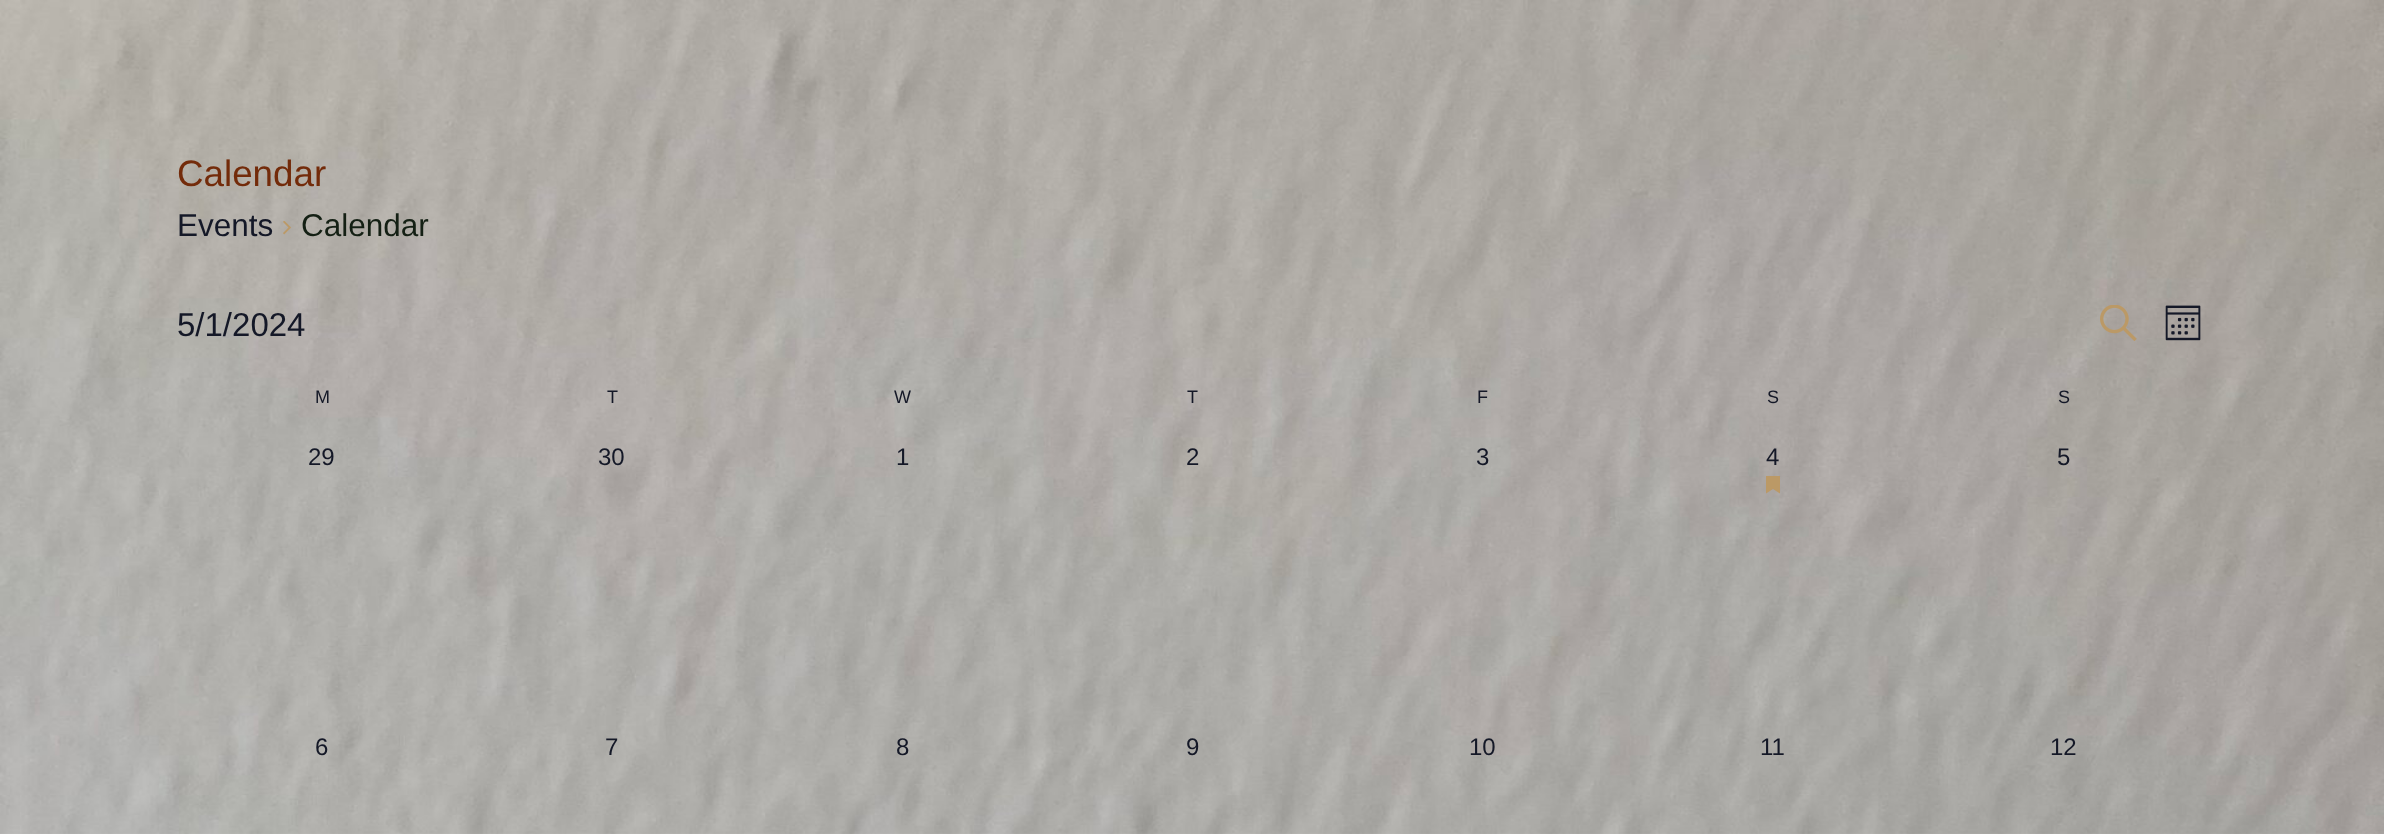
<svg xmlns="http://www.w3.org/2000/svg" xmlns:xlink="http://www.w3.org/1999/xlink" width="2384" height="834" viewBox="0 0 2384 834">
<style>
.cls-1{font:36.75px Liberation Sans;fill:#732b0a}
.cls-2{font:31.5px Liberation Sans;fill:#141827}
.cls-3{font:31.5px Liberation Sans;fill:#142014}
.cls-4{font:33px Liberation Sans;fill:#141827}
.cls-5{font:18px Liberation Sans;fill:#141827}
.cls-6{font:24px Liberation Sans;fill:#141827}
</style>
<rect width="100%" height="100%" fill="#ffffff"/>
<image xlink:href="image0.png" x="0" y="0" width="2384" height="834"/>
<image xlink:href="image1.png" x="283" y="221" width="8" height="14"/>
<image xlink:href="image2.png" x="2100" y="305" width="37" height="36"/>
<image xlink:href="image3.png" x="2165" y="305" width="36" height="36"/>
<path fill="#bb9966" fill-rule="evenodd" d="M1766 476H1780V493.5L1773 489L1766 493.5Z"/>
<text class="cls-1" x="177" y="186">Calendar</text>
<text class="cls-2" x="177" y="236">Events</text>
<text class="cls-3" x="301" y="236">Calendar</text>
<text class="cls-4" x="177" y="336">5/1/2024</text>
<text class="cls-5" x="315" y="403">M</text>
<text class="cls-5" x="607" y="403">T</text>
<text class="cls-5" x="894" y="403">W</text>
<text class="cls-5" x="1187" y="403">T</text>
<text class="cls-5" x="1477" y="403">F</text>
<text class="cls-5" x="1767" y="403">S</text>
<text class="cls-5" x="2058" y="403">S</text>
<text class="cls-6" x="308" y="465">29</text>
<text class="cls-6" x="598" y="465">30</text>
<text class="cls-6" x="896" y="465">1</text>
<text class="cls-6" x="1186" y="465">2</text>
<text class="cls-6" x="1476" y="465">3</text>
<text class="cls-6" x="1766" y="465">4</text>
<text class="cls-6" x="2057" y="465">5</text>
<text class="cls-6" x="315" y="755">6</text>
<text class="cls-6" x="605" y="755">7</text>
<text class="cls-6" x="896" y="755">8</text>
<text class="cls-6" x="1186" y="755">9</text>
<text class="cls-6" x="1469" y="755">10</text>
<text class="cls-6" x="1760" y="755">11</text>
<text class="cls-6" x="2050" y="755">12</text>
</svg>
